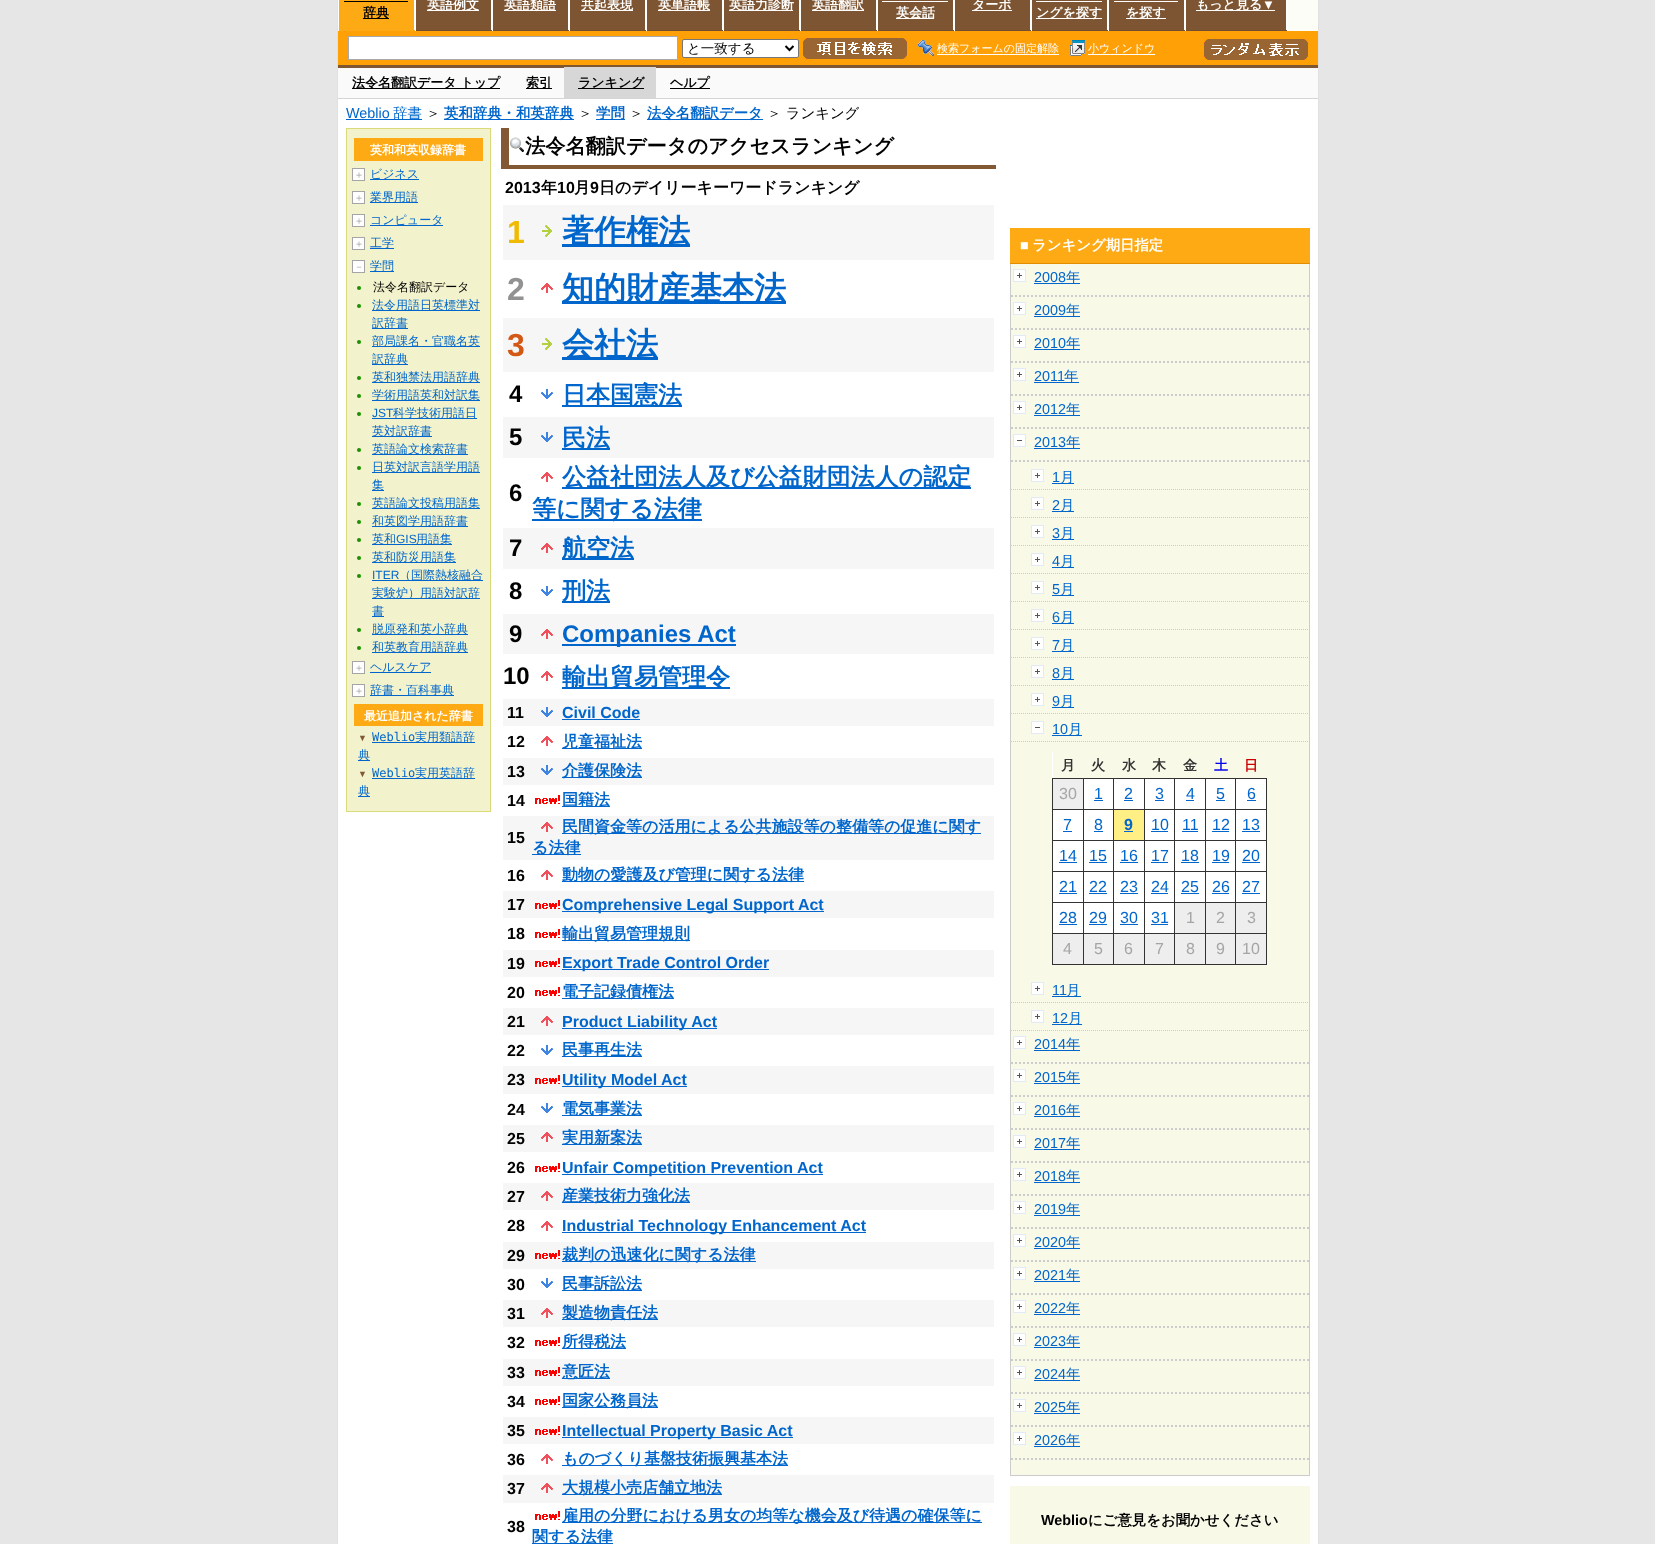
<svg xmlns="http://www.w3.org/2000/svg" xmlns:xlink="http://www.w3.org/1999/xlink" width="1655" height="1544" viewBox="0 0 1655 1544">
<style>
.cls-1{font:bold 13px WenQuanYi Zen Hei;fill:#000000}
.cls-2{font:bold 13px WenQuanYi Zen Hei;fill:#ffffff}
.cls-3{font:bold 13px Liberation Sans;fill:#ffffff}
.cls-4{font:500 13.5px WenQuanYi Zen Hei;fill:#000000}
.cls-5{font:500 11px WenQuanYi Zen Hei;fill:#ffffff}
.cls-6{font:14.4px Liberation Sans;fill:#0066cc}
.cls-7{font:500 14.4px WenQuanYi Zen Hei;fill:#0066cc}
.cls-8{font:500 14.4px WenQuanYi Zen Hei;fill:#000000}
.cls-9{font:bold 14.4px WenQuanYi Zen Hei;fill:#0066cc}
.cls-10{font:bold 12px WenQuanYi Zen Hei;fill:#ffffff}
.cls-11{font:500 10px WenQuanYi Zen Hei;fill:#a5a5a5}
.cls-12{font:500 12px WenQuanYi Zen Hei;fill:#0066cc}
.cls-13{font:500 12px WenQuanYi Zen Hei;fill:#000000}
.cls-14{font:12px Liberation Sans;fill:#0066cc}
.cls-15{font:9px Liberation Sans;fill:#825934}
.cls-16{font:12px DejaVu Sans Mono;fill:#0066cc}
.cls-17{font:bold 20.2px WenQuanYi Zen Hei;fill:#000000}
.cls-18{font:bold 16px Liberation Sans;fill:#000000}
.cls-19{font:bold 16px WenQuanYi Zen Hei;fill:#000000}
.cls-20{font:bold 32px Liberation Sans;fill:#f0ba00}
.cls-21{font:bold 32px WenQuanYi Zen Hei;fill:#0066cc}
.cls-22{font:bold 32px Liberation Sans;fill:#929292}
.cls-23{font:bold 32px Liberation Sans;fill:#d35816}
.cls-24{font:bold 24px Liberation Sans;fill:#000000}
.cls-25{font:bold 24px WenQuanYi Zen Hei;fill:#0066cc}
.cls-26{font:bold 24px Liberation Sans;fill:#0066cc}
.cls-27{font:bold 16px Liberation Sans;fill:#0066cc}
.cls-28{font:bold 16px WenQuanYi Zen Hei;fill:#0066cc}
.cls-29{font:bold 14.4px Liberation Sans;fill:#ffffff}
.cls-30{font:bold 14.4px WenQuanYi Zen Hei;fill:#ffffff}
.cls-31{font:bold 14px WenQuanYi Zen Hei;fill:#333333}
.cls-32{font:bold 14px WenQuanYi Zen Hei;fill:#0000ee}
.cls-33{font:bold 14px WenQuanYi Zen Hei;fill:#cc0000}
.cls-34{font:16px Liberation Sans;fill:#a5a5a5}
.cls-35{font:16px Liberation Sans;fill:#0066cc}
.cls-36{font:bold 14.4px Liberation Sans;fill:#000000}
.cls-37{font:bold 14.4px WenQuanYi Zen Hei;fill:#000000}
</style>
<rect width="100%" height="100%" fill="#e6e6e6"/>
<rect fill="#ffffff" x="338" y="99" width="980" height="1445"/>
<rect fill="#e0e0e0" x="1318" y="0" width="1" height="1544"/>
<rect fill="#e0e0e0" x="337" y="0" width="1" height="1544"/>
<rect fill="#fdfdf7" x="1287" y="0" width="31" height="31"/>
<rect fill="#feaa15" x="339" y="0" width="75" height="30"/>
<rect fill="#ffffff" x="414" y="0" width="1" height="31"/>
<rect fill="#fdaa1a" x="338" y="30" width="77" height="1"/>
<rect fill="#ffffff" x="338" y="0" width="1" height="31"/>
<rect fill="#000000" x="344" y="1" width="64" height="1"/>
<rect fill="#000000" x="363" y="18" width="26" height="1"/>
<rect fill="#7d5532" x="416" y="0" width="75" height="30"/>
<rect fill="#ffffff" x="491" y="0" width="1" height="31"/>
<rect fill="#724e2e" x="415" y="30" width="77" height="1"/>
<rect fill="#ffffff" x="415" y="0" width="1" height="31"/>
<rect fill="#ffffff" x="427" y="10" width="52" height="1"/>
<rect fill="#7d5532" x="493" y="0" width="75" height="30"/>
<rect fill="#ffffff" x="568" y="0" width="1" height="31"/>
<rect fill="#724e2e" x="492" y="30" width="77" height="1"/>
<rect fill="#ffffff" x="492" y="0" width="1" height="31"/>
<rect fill="#ffffff" x="504" y="10" width="52" height="1"/>
<rect fill="#7d5532" x="570" y="0" width="75" height="30"/>
<rect fill="#ffffff" x="645" y="0" width="1" height="31"/>
<rect fill="#724e2e" x="569" y="30" width="77" height="1"/>
<rect fill="#ffffff" x="569" y="0" width="1" height="31"/>
<rect fill="#ffffff" x="581" y="10" width="52" height="1"/>
<rect fill="#7d5532" x="647" y="0" width="75" height="30"/>
<rect fill="#ffffff" x="722" y="0" width="1" height="31"/>
<rect fill="#724e2e" x="646" y="30" width="77" height="1"/>
<rect fill="#ffffff" x="646" y="0" width="1" height="31"/>
<rect fill="#ffffff" x="658" y="10" width="52" height="1"/>
<rect fill="#7d5532" x="724" y="0" width="75" height="30"/>
<rect fill="#ffffff" x="799" y="0" width="1" height="31"/>
<rect fill="#724e2e" x="723" y="30" width="77" height="1"/>
<rect fill="#ffffff" x="723" y="0" width="1" height="31"/>
<rect fill="#ffffff" x="729" y="10" width="64" height="1"/>
<rect fill="#7d5532" x="801" y="0" width="75" height="30"/>
<rect fill="#ffffff" x="876" y="0" width="1" height="31"/>
<rect fill="#724e2e" x="800" y="30" width="77" height="1"/>
<rect fill="#ffffff" x="800" y="0" width="1" height="31"/>
<rect fill="#ffffff" x="812" y="10" width="52" height="1"/>
<rect fill="#7d5532" x="878" y="0" width="75" height="30"/>
<rect fill="#ffffff" x="953" y="0" width="1" height="31"/>
<rect fill="#724e2e" x="877" y="30" width="77" height="1"/>
<rect fill="#ffffff" x="877" y="0" width="1" height="31"/>
<rect fill="#ffffff" x="882" y="1" width="66" height="1"/>
<rect fill="#ffffff" x="896" y="18" width="38" height="1"/>
<rect fill="#7d5532" x="955" y="0" width="75" height="30"/>
<rect fill="#ffffff" x="1030" y="0" width="1" height="31"/>
<rect fill="#724e2e" x="954" y="30" width="77" height="1"/>
<rect fill="#ffffff" x="954" y="0" width="1" height="31"/>
<rect fill="#ffffff" x="972" y="10" width="40" height="1"/>
<rect fill="#7d5532" x="1032" y="0" width="75" height="30"/>
<rect fill="#ffffff" x="1107" y="0" width="1" height="31"/>
<rect fill="#724e2e" x="1031" y="30" width="77" height="1"/>
<rect fill="#ffffff" x="1031" y="0" width="1" height="31"/>
<rect fill="#ffffff" x="1036" y="1" width="66" height="1"/>
<rect fill="#ffffff" x="1036" y="18" width="66" height="1"/>
<rect fill="#7d5532" x="1109" y="0" width="75" height="30"/>
<rect fill="#ffffff" x="1184" y="0" width="1" height="31"/>
<rect fill="#724e2e" x="1108" y="30" width="77" height="1"/>
<rect fill="#ffffff" x="1108" y="0" width="1" height="31"/>
<rect fill="#ffffff" x="1114" y="1" width="64" height="1"/>
<rect fill="#ffffff" x="1126" y="18" width="40" height="1"/>
<rect fill="#7d5532" x="1186" y="0" width="100" height="30"/>
<rect fill="#ffffff" x="1286" y="0" width="1" height="31"/>
<rect fill="#724e2e" x="1185" y="30" width="102" height="1"/>
<rect fill="#ffffff" x="1185" y="0" width="1" height="31"/>
<rect fill="#ffffff" x="1196" y="10" width="79" height="1"/>
<rect fill="#ffa007" x="338" y="31" width="980" height="34"/>
<rect fill="#7e5632" x="338" y="65" width="980" height="3"/>
<rect fill="#ffffff" x="349" y="37" width="328" height="22"/>
<rect fill="#a9a9a9" x="348" y="36" width="330" height="1"/>
<rect fill="#a9a9a9" x="677" y="36" width="1" height="24"/>
<rect fill="#a9a9a9" x="348" y="59" width="330" height="1"/>
<rect fill="#a9a9a9" x="348" y="36" width="1" height="24"/>
<rect fill="#ffffff" stroke="#767676" x="682.5" y="39.5" width="116" height="18" rx="1.5"/>
<path fill="none" stroke="#000000" stroke-width="2" d="M785.5 46L789.5 50L793.5 46"/>
<image xlink:href="image0.png" x="803" y="38" width="104" height="21"/>
<image xlink:href="image1.png" x="918" y="40" width="16" height="16"/>
<rect fill="#ffffff" x="937" y="54" width="122" height="1"/>
<image xlink:href="image2.png" x="1070" y="40" width="15" height="16"/>
<rect fill="#ffffff" x="1088" y="54" width="67" height="1"/>
<image xlink:href="image3.png" x="1204" y="39" width="104" height="21"/>
<rect fill="#fafafa" x="338" y="68" width="980" height="30"/>
<rect fill="#d5d5d5" x="338" y="98" width="980" height="1"/>
<rect fill="#000000" x="352" y="88" width="148" height="1"/>
<rect fill="#000000" x="526" y="88" width="26" height="1"/>
<rect fill="#d7d7d7" x="564" y="67" width="92" height="31"/>
<rect fill="#000000" x="578" y="88" width="66" height="1"/>
<rect fill="#000000" x="670" y="88" width="40" height="1"/>
<rect fill="#0066cc" x="346" y="119" width="76" height="1"/>
<rect fill="#0066cc" x="444" y="119" width="130" height="1"/>
<rect fill="#0066cc" x="596" y="119" width="29" height="1"/>
<rect fill="#0066cc" x="647" y="119" width="116" height="1"/>
<rect fill="#f2f2cc" x="347" y="129" width="143" height="682"/>
<rect fill="#dada7b" x="346" y="128" width="145" height="1"/>
<rect fill="#dada7b" x="490" y="128" width="1" height="684"/>
<rect fill="#dada7b" x="346" y="128" width="1" height="678"/>
<rect fill="#feaa15" x="354" y="138" width="129" height="23"/>
<rect fill="#ffffff" stroke="#a5a5a5" x="352.5" y="168.5" width="12" height="12"/>
<rect fill="#0066cc" x="370" y="179" width="49" height="1"/>
<rect fill="#ffffff" stroke="#a5a5a5" x="352.5" y="191.5" width="12" height="12"/>
<rect fill="#0066cc" x="370" y="202" width="48" height="1"/>
<rect fill="#ffffff" stroke="#a5a5a5" x="352.5" y="214.5" width="12" height="12"/>
<rect fill="#0066cc" x="370" y="225" width="73" height="1"/>
<rect fill="#ffffff" stroke="#a5a5a5" x="352.5" y="237.5" width="12" height="12"/>
<rect fill="#0066cc" x="370" y="248" width="24" height="1"/>
<rect fill="#ffffff" stroke="#a5a5a5" x="352.5" y="260.5" width="12" height="12"/>
<rect fill="#0066cc" x="370" y="271" width="24" height="1"/>
<circle fill="#1c9000" cx="359" cy="288" r="2"/>
<circle fill="#1c9000" cx="359" cy="306" r="2"/>
<rect fill="#0066cc" x="372" y="310" width="108" height="1"/>
<rect fill="#0066cc" x="372" y="328" width="36" height="1"/>
<circle fill="#1c9000" cx="359" cy="342" r="2"/>
<rect fill="#0066cc" x="372" y="346" width="108" height="1"/>
<rect fill="#0066cc" x="372" y="364" width="36" height="1"/>
<circle fill="#1c9000" cx="359" cy="378" r="2"/>
<rect fill="#0066cc" x="372" y="382" width="108" height="1"/>
<circle fill="#1c9000" cx="359" cy="396" r="2"/>
<rect fill="#0066cc" x="372" y="400" width="108" height="1"/>
<circle fill="#1c9000" cx="359" cy="414" r="2"/>
<rect fill="#0066cc" x="372" y="418" width="105" height="1"/>
<rect fill="#0066cc" x="372" y="436" width="60" height="1"/>
<circle fill="#1c9000" cx="359" cy="450" r="2"/>
<rect fill="#0066cc" x="372" y="454" width="96" height="1"/>
<circle fill="#1c9000" cx="359" cy="468" r="2"/>
<rect fill="#0066cc" x="372" y="472" width="108" height="1"/>
<rect fill="#0066cc" x="372" y="490" width="12" height="1"/>
<circle fill="#1c9000" cx="359" cy="504" r="2"/>
<rect fill="#0066cc" x="372" y="508" width="108" height="1"/>
<circle fill="#1c9000" cx="359" cy="522" r="2"/>
<rect fill="#0066cc" x="372" y="526" width="96" height="1"/>
<circle fill="#1c9000" cx="359" cy="540" r="2"/>
<rect fill="#0066cc" x="372" y="544" width="80" height="1"/>
<circle fill="#1c9000" cx="359" cy="558" r="2"/>
<rect fill="#0066cc" x="372" y="562" width="84" height="1"/>
<circle fill="#1c9000" cx="359" cy="576" r="2"/>
<rect fill="#0066cc" x="372" y="580" width="111" height="1"/>
<rect fill="#0066cc" x="372" y="598" width="108" height="1"/>
<rect fill="#0066cc" x="372" y="616" width="12" height="1"/>
<circle fill="#1c9000" cx="359" cy="630" r="2"/>
<rect fill="#0066cc" x="372" y="634" width="96" height="1"/>
<circle fill="#1c9000" cx="359" cy="648" r="2"/>
<rect fill="#0066cc" x="372" y="652" width="96" height="1"/>
<rect fill="#ffffff" stroke="#a5a5a5" x="352.5" y="661.5" width="12" height="12"/>
<rect fill="#0066cc" x="370" y="672" width="61" height="1"/>
<rect fill="#ffffff" stroke="#a5a5a5" x="352.5" y="684.5" width="12" height="12"/>
<rect fill="#0066cc" x="370" y="695" width="84" height="1"/>
<rect fill="#feaa15" x="354" y="704" width="129" height="22"/>
<rect fill="#0066cc" x="372" y="742" width="103" height="1"/>
<rect fill="#0066cc" x="358" y="760" width="12" height="1"/>
<rect fill="#0066cc" x="372" y="778" width="103" height="1"/>
<rect fill="#0066cc" x="358" y="796" width="12" height="1"/>
<rect fill="#dada7b" x="346" y="811" width="145" height="1"/>
<rect fill="#dada7b" x="346" y="800" width="1" height="12"/>
<rect fill="#825934" x="501" y="165" width="495" height="4"/>
<rect fill="#825934" x="501" y="128" width="8" height="37"/>
<image xlink:href="image4.png" x="510" y="137" width="14" height="15"/>
<rect fill="#f6f6f6" x="503" y="205" width="491" height="55"/>
<image xlink:href="image5.png" x="542" y="225" width="10" height="12"/>
<rect fill="#0066cc" x="562" y="244" width="128" height="3"/>
<image xlink:href="image6.png" x="541" y="283" width="12" height="10"/>
<rect fill="#0066cc" x="562" y="301" width="224" height="3"/>
<rect fill="#f6f6f6" x="503" y="318" width="491" height="54"/>
<image xlink:href="image5.png" x="542" y="338" width="10" height="12"/>
<rect fill="#0066cc" x="562" y="357" width="96" height="3"/>
<image xlink:href="image7.png" x="541" y="389" width="12" height="10"/>
<rect fill="#0066cc" x="562" y="405" width="120" height="2"/>
<rect fill="#f6f6f6" x="503" y="417" width="491" height="41"/>
<image xlink:href="image8.png" x="541" y="432" width="12" height="10"/>
<rect fill="#0066cc" x="562" y="448" width="48" height="2"/>
<image xlink:href="image6.png" x="541" y="472" width="12" height="10"/>
<rect fill="#0066cc" x="562" y="487" width="409" height="2"/>
<rect fill="#0066cc" x="532" y="519" width="170" height="2"/>
<rect fill="#f6f6f6" x="503" y="528" width="491" height="41"/>
<image xlink:href="image9.png" x="541" y="543" width="12" height="10"/>
<rect fill="#0066cc" x="562" y="558" width="72" height="2"/>
<image xlink:href="image7.png" x="541" y="586" width="12" height="10"/>
<rect fill="#0066cc" x="562" y="601" width="48" height="2"/>
<rect fill="#f6f6f6" x="503" y="614" width="491" height="40"/>
<image xlink:href="image9.png" x="541" y="629" width="12" height="10"/>
<rect fill="#0066cc" x="562" y="644" width="174" height="2"/>
<image xlink:href="image6.png" x="541" y="671" width="12" height="10"/>
<rect fill="#0066cc" x="562" y="687" width="168" height="2"/>
<rect fill="#f6f6f6" x="503" y="699" width="491" height="27"/>
<image xlink:href="image8.png" x="541" y="707" width="12" height="10"/>
<rect fill="#0066cc" x="562" y="719" width="78" height="1"/>
<image xlink:href="image6.png" x="541" y="736" width="12" height="10"/>
<rect fill="#0066cc" x="562" y="748" width="80" height="1"/>
<rect fill="#f6f6f6" x="503" y="758" width="491" height="27"/>
<image xlink:href="image8.png" x="541" y="765" width="12" height="10"/>
<rect fill="#0066cc" x="562" y="777" width="80" height="1"/>
<image xlink:href="image10.png" x="535" y="795" width="25" height="9"/>
<rect fill="#0066cc" x="562" y="806" width="48" height="1"/>
<rect fill="#f6f6f6" x="503" y="816" width="491" height="44"/>
<image xlink:href="image9.png" x="541" y="822" width="12" height="10"/>
<rect fill="#0066cc" x="562" y="833" width="419" height="1"/>
<rect fill="#0066cc" x="532" y="854" width="49" height="1"/>
<image xlink:href="image6.png" x="541" y="870" width="12" height="10"/>
<rect fill="#0066cc" x="562" y="881" width="242" height="1"/>
<rect fill="#f6f6f6" x="503" y="891" width="491" height="27"/>
<image xlink:href="image11.png" x="535" y="900" width="25" height="9"/>
<rect fill="#0066cc" x="562" y="911" width="262" height="1"/>
<image xlink:href="image10.png" x="535" y="929" width="25" height="9"/>
<rect fill="#0066cc" x="562" y="940" width="128" height="1"/>
<rect fill="#f6f6f6" x="503" y="950" width="491" height="27"/>
<image xlink:href="image11.png" x="535" y="958" width="25" height="9"/>
<rect fill="#0066cc" x="562" y="969" width="207" height="1"/>
<image xlink:href="image10.png" x="535" y="987" width="25" height="9"/>
<rect fill="#0066cc" x="562" y="998" width="112" height="1"/>
<rect fill="#f6f6f6" x="503" y="1008" width="491" height="27"/>
<image xlink:href="image9.png" x="541" y="1016" width="12" height="10"/>
<rect fill="#0066cc" x="562" y="1028" width="155" height="1"/>
<image xlink:href="image7.png" x="541" y="1045" width="12" height="10"/>
<rect fill="#0066cc" x="562" y="1056" width="80" height="1"/>
<rect fill="#f6f6f6" x="503" y="1066" width="491" height="28"/>
<image xlink:href="image11.png" x="535" y="1075" width="25" height="9"/>
<rect fill="#0066cc" x="562" y="1086" width="125" height="1"/>
<image xlink:href="image7.png" x="541" y="1103" width="12" height="10"/>
<rect fill="#0066cc" x="562" y="1115" width="80" height="1"/>
<rect fill="#f6f6f6" x="503" y="1125" width="491" height="27"/>
<image xlink:href="image9.png" x="541" y="1132" width="12" height="10"/>
<rect fill="#0066cc" x="562" y="1144" width="80" height="1"/>
<image xlink:href="image10.png" x="535" y="1163" width="25" height="9"/>
<rect fill="#0066cc" x="562" y="1174" width="261" height="1"/>
<rect fill="#f6f6f6" x="503" y="1183" width="491" height="27"/>
<image xlink:href="image9.png" x="541" y="1191" width="12" height="10"/>
<rect fill="#0066cc" x="562" y="1202" width="128" height="1"/>
<image xlink:href="image6.png" x="541" y="1221" width="12" height="10"/>
<rect fill="#0066cc" x="562" y="1232" width="304" height="1"/>
<rect fill="#f6f6f6" x="503" y="1242" width="491" height="27"/>
<image xlink:href="image11.png" x="535" y="1250" width="25" height="9"/>
<rect fill="#0066cc" x="562" y="1261" width="194" height="1"/>
<image xlink:href="image7.png" x="541" y="1278" width="12" height="10"/>
<rect fill="#0066cc" x="562" y="1290" width="80" height="1"/>
<rect fill="#f6f6f6" x="503" y="1300" width="491" height="27"/>
<image xlink:href="image9.png" x="541" y="1308" width="12" height="10"/>
<rect fill="#0066cc" x="562" y="1319" width="96" height="1"/>
<image xlink:href="image10.png" x="535" y="1337" width="25" height="9"/>
<rect fill="#0066cc" x="562" y="1348" width="64" height="1"/>
<rect fill="#f6f6f6" x="503" y="1359" width="491" height="27"/>
<image xlink:href="image11.png" x="535" y="1367" width="25" height="9"/>
<rect fill="#0066cc" x="562" y="1378" width="48" height="1"/>
<image xlink:href="image10.png" x="535" y="1396" width="25" height="9"/>
<rect fill="#0066cc" x="562" y="1407" width="96" height="1"/>
<rect fill="#f6f6f6" x="503" y="1417" width="491" height="27"/>
<image xlink:href="image11.png" x="535" y="1426" width="25" height="9"/>
<rect fill="#0066cc" x="562" y="1437" width="231" height="1"/>
<image xlink:href="image6.png" x="541" y="1454" width="12" height="10"/>
<rect fill="#0066cc" x="562" y="1465" width="226" height="1"/>
<rect fill="#f6f6f6" x="503" y="1475" width="491" height="28"/>
<image xlink:href="image9.png" x="541" y="1483" width="12" height="10"/>
<rect fill="#0066cc" x="562" y="1494" width="160" height="1"/>
<image xlink:href="image10.png" x="535" y="1511" width="25" height="9"/>
<rect fill="#0066cc" x="562" y="1522" width="420" height="1"/>
<rect fill="#0066cc" x="532" y="1543" width="81" height="1"/>
<rect fill="#feaa15" x="1010" y="228" width="300" height="35"/>
<rect fill="#e38e00" x="1010" y="263" width="300" height="1"/>
<rect fill="#f9f9e8" x="1011" y="264" width="298" height="1211"/>
<rect fill="#cccccc" x="1309" y="264" width="1" height="1212"/>
<rect fill="#cccccc" x="1010" y="1475" width="300" height="1"/>
<rect fill="#cccccc" x="1010" y="264" width="1" height="1212"/>
<path fill="none" stroke="#cccccc" stroke-width="2" stroke-dasharray="2 2" d="M1011 296H1309"/>
<image xlink:href="image12.png" x="1013" y="269" width="13" height="13"/>
<rect fill="#0066cc" x="1034" y="283" width="46" height="1"/>
<path fill="none" stroke="#cccccc" stroke-width="2" stroke-dasharray="2 2" d="M1011 329H1309"/>
<image xlink:href="image12.png" x="1013" y="302" width="13" height="13"/>
<rect fill="#0066cc" x="1034" y="316" width="46" height="1"/>
<path fill="none" stroke="#cccccc" stroke-width="2" stroke-dasharray="2 2" d="M1011 362H1309"/>
<image xlink:href="image12.png" x="1013" y="335" width="13" height="13"/>
<rect fill="#0066cc" x="1034" y="349" width="46" height="1"/>
<path fill="none" stroke="#cccccc" stroke-width="2" stroke-dasharray="2 2" d="M1011 395H1309"/>
<image xlink:href="image12.png" x="1013" y="368" width="13" height="13"/>
<rect fill="#0066cc" x="1034" y="382" width="45" height="1"/>
<path fill="none" stroke="#cccccc" stroke-width="2" stroke-dasharray="2 2" d="M1011 428H1309"/>
<image xlink:href="image12.png" x="1013" y="401" width="13" height="13"/>
<rect fill="#0066cc" x="1034" y="415" width="46" height="1"/>
<path fill="none" stroke="#cccccc" stroke-width="2" stroke-dasharray="2 2" d="M1011 461H1309"/>
<image xlink:href="image13.png" x="1013" y="434" width="13" height="13"/>
<rect fill="#0066cc" x="1034" y="448" width="46" height="1"/>
<path fill="none" stroke="#cccccc" stroke-dasharray="1 1" d="M1011 489.5H1309"/>
<image xlink:href="image12.png" x="1031" y="469" width="13" height="13"/>
<rect fill="#0066cc" x="1052" y="483" width="22" height="1"/>
<path fill="none" stroke="#cccccc" stroke-dasharray="1 1" d="M1011 517.5H1309"/>
<image xlink:href="image12.png" x="1031" y="497" width="13" height="13"/>
<rect fill="#0066cc" x="1052" y="511" width="22" height="1"/>
<path fill="none" stroke="#cccccc" stroke-dasharray="1 1" d="M1011 545.5H1309"/>
<image xlink:href="image12.png" x="1031" y="525" width="13" height="13"/>
<rect fill="#0066cc" x="1052" y="539" width="22" height="1"/>
<path fill="none" stroke="#cccccc" stroke-dasharray="1 1" d="M1011 573.5H1309"/>
<image xlink:href="image12.png" x="1031" y="553" width="13" height="13"/>
<rect fill="#0066cc" x="1052" y="567" width="22" height="1"/>
<path fill="none" stroke="#cccccc" stroke-dasharray="1 1" d="M1011 601.5H1309"/>
<image xlink:href="image12.png" x="1031" y="581" width="13" height="13"/>
<rect fill="#0066cc" x="1052" y="595" width="22" height="1"/>
<path fill="none" stroke="#cccccc" stroke-dasharray="1 1" d="M1011 629.5H1309"/>
<image xlink:href="image12.png" x="1031" y="609" width="13" height="13"/>
<rect fill="#0066cc" x="1052" y="623" width="22" height="1"/>
<path fill="none" stroke="#cccccc" stroke-dasharray="1 1" d="M1011 657.5H1309"/>
<image xlink:href="image12.png" x="1031" y="637" width="13" height="13"/>
<rect fill="#0066cc" x="1052" y="651" width="22" height="1"/>
<path fill="none" stroke="#cccccc" stroke-dasharray="1 1" d="M1011 685.5H1309"/>
<image xlink:href="image12.png" x="1031" y="665" width="13" height="13"/>
<rect fill="#0066cc" x="1052" y="679" width="22" height="1"/>
<path fill="none" stroke="#cccccc" stroke-dasharray="1 1" d="M1011 713.5H1309"/>
<image xlink:href="image12.png" x="1031" y="693" width="13" height="13"/>
<rect fill="#0066cc" x="1052" y="707" width="22" height="1"/>
<path fill="none" stroke="#cccccc" stroke-dasharray="1 1" d="M1011 741.5H1309"/>
<image xlink:href="image13.png" x="1031" y="721" width="13" height="13"/>
<rect fill="#0066cc" x="1052" y="735" width="30" height="1"/>
<rect fill="#ffffff" x="1052" y="752" width="214" height="181"/>
<rect fill="#f9f9e8" x="1053" y="752" width="213" height="26"/>
<rect fill="#eeeeee" x="1053" y="779" width="30" height="30"/>
<rect fill="#333333" x="1235" y="778" width="32" height="1"/>
<rect fill="#333333" x="1235" y="809" width="32" height="1"/>
<rect fill="#333333" x="1235" y="840" width="32" height="1"/>
<rect fill="#333333" x="1235" y="871" width="32" height="1"/>
<rect fill="#333333" x="1235" y="902" width="32" height="1"/>
<rect fill="#333333" x="1235" y="933" width="32" height="1"/>
<rect fill="#333333" x="1266" y="933" width="1" height="32"/>
<rect fill="#333333" x="1235" y="964" width="32" height="1"/>
<rect fill="#333333" x="1235" y="933" width="1" height="32"/>
<rect fill="#333333" x="1205" y="933" width="31" height="1"/>
<rect fill="#333333" x="1235" y="902" width="1" height="32"/>
<rect fill="#333333" x="1205" y="902" width="31" height="1"/>
<rect fill="#333333" x="1235" y="871" width="1" height="32"/>
<rect fill="#333333" x="1205" y="871" width="31" height="1"/>
<rect fill="#333333" x="1235" y="840" width="1" height="32"/>
<rect fill="#333333" x="1205" y="840" width="31" height="1"/>
<rect fill="#333333" x="1235" y="809" width="1" height="32"/>
<rect fill="#333333" x="1205" y="809" width="31" height="1"/>
<rect fill="#333333" x="1235" y="778" width="1" height="32"/>
<rect fill="#333333" x="1205" y="778" width="31" height="1"/>
<rect fill="#333333" x="1205" y="964" width="31" height="1"/>
<rect fill="#333333" x="1205" y="933" width="1" height="32"/>
<rect fill="#333333" x="1174" y="933" width="32" height="1"/>
<rect fill="#333333" x="1205" y="902" width="1" height="32"/>
<rect fill="#333333" x="1174" y="902" width="32" height="1"/>
<rect fill="#333333" x="1205" y="871" width="1" height="32"/>
<rect fill="#333333" x="1174" y="871" width="32" height="1"/>
<rect fill="#333333" x="1205" y="840" width="1" height="32"/>
<rect fill="#333333" x="1174" y="840" width="32" height="1"/>
<rect fill="#333333" x="1205" y="809" width="1" height="32"/>
<rect fill="#333333" x="1174" y="809" width="32" height="1"/>
<rect fill="#333333" x="1205" y="778" width="1" height="32"/>
<rect fill="#333333" x="1174" y="778" width="32" height="1"/>
<rect fill="#333333" x="1174" y="964" width="32" height="1"/>
<rect fill="#333333" x="1174" y="933" width="1" height="32"/>
<rect fill="#333333" x="1144" y="933" width="31" height="1"/>
<rect fill="#333333" x="1174" y="902" width="1" height="32"/>
<rect fill="#333333" x="1144" y="902" width="31" height="1"/>
<rect fill="#333333" x="1174" y="871" width="1" height="32"/>
<rect fill="#333333" x="1144" y="871" width="31" height="1"/>
<rect fill="#333333" x="1174" y="840" width="1" height="32"/>
<rect fill="#333333" x="1144" y="840" width="31" height="1"/>
<rect fill="#333333" x="1174" y="809" width="1" height="32"/>
<rect fill="#333333" x="1144" y="809" width="31" height="1"/>
<rect fill="#333333" x="1174" y="778" width="1" height="32"/>
<rect fill="#333333" x="1144" y="778" width="31" height="1"/>
<rect fill="#333333" x="1144" y="964" width="31" height="1"/>
<rect fill="#333333" x="1144" y="933" width="1" height="32"/>
<rect fill="#333333" x="1113" y="933" width="32" height="1"/>
<rect fill="#333333" x="1144" y="902" width="1" height="32"/>
<rect fill="#333333" x="1113" y="902" width="32" height="1"/>
<rect fill="#333333" x="1144" y="871" width="1" height="32"/>
<rect fill="#333333" x="1113" y="871" width="32" height="1"/>
<rect fill="#333333" x="1144" y="840" width="1" height="32"/>
<rect fill="#333333" x="1113" y="840" width="32" height="1"/>
<rect fill="#333333" x="1144" y="809" width="1" height="32"/>
<rect fill="#333333" x="1113" y="809" width="32" height="1"/>
<rect fill="#333333" x="1144" y="778" width="1" height="32"/>
<rect fill="#333333" x="1113" y="778" width="32" height="1"/>
<rect fill="#333333" x="1113" y="964" width="32" height="1"/>
<rect fill="#333333" x="1113" y="933" width="1" height="32"/>
<rect fill="#333333" x="1083" y="933" width="31" height="1"/>
<rect fill="#333333" x="1113" y="902" width="1" height="32"/>
<rect fill="#333333" x="1083" y="902" width="31" height="1"/>
<rect fill="#333333" x="1113" y="871" width="1" height="32"/>
<rect fill="#333333" x="1083" y="871" width="31" height="1"/>
<rect fill="#333333" x="1113" y="840" width="1" height="32"/>
<rect fill="#333333" x="1083" y="840" width="31" height="1"/>
<rect fill="#333333" x="1113" y="809" width="1" height="32"/>
<rect fill="#333333" x="1083" y="809" width="31" height="1"/>
<rect fill="#333333" x="1113" y="778" width="1" height="32"/>
<rect fill="#333333" x="1083" y="778" width="31" height="1"/>
<rect fill="#333333" x="1083" y="964" width="31" height="1"/>
<rect fill="#333333" x="1083" y="933" width="1" height="32"/>
<rect fill="#333333" x="1052" y="933" width="32" height="1"/>
<rect fill="#333333" x="1083" y="902" width="1" height="32"/>
<rect fill="#333333" x="1052" y="902" width="32" height="1"/>
<rect fill="#333333" x="1083" y="871" width="1" height="32"/>
<rect fill="#333333" x="1052" y="871" width="32" height="1"/>
<rect fill="#333333" x="1083" y="840" width="1" height="32"/>
<rect fill="#333333" x="1052" y="840" width="32" height="1"/>
<rect fill="#333333" x="1083" y="809" width="1" height="32"/>
<rect fill="#333333" x="1052" y="809" width="32" height="1"/>
<rect fill="#333333" x="1083" y="778" width="1" height="32"/>
<rect fill="#333333" x="1052" y="778" width="32" height="1"/>
<rect fill="#333333" x="1052" y="964" width="32" height="1"/>
<rect fill="#333333" x="1052" y="933" width="1" height="32"/>
<rect fill="#333333" x="1052" y="902" width="1" height="32"/>
<rect fill="#333333" x="1052" y="871" width="1" height="32"/>
<rect fill="#333333" x="1052" y="840" width="1" height="32"/>
<rect fill="#333333" x="1052" y="809" width="1" height="32"/>
<rect fill="#333333" x="1052" y="778" width="1" height="32"/>
<rect fill="#0066cc" x="1094" y="800" width="9" height="1"/>
<rect fill="#0066cc" x="1124" y="800" width="9" height="1"/>
<rect fill="#0066cc" x="1155" y="800" width="9" height="1"/>
<rect fill="#0066cc" x="1186" y="800" width="8" height="1"/>
<rect fill="#0066cc" x="1216" y="800" width="9" height="1"/>
<rect fill="#333333" x="1266" y="902" width="1" height="32"/>
<rect fill="#333333" x="1266" y="871" width="1" height="32"/>
<rect fill="#333333" x="1266" y="840" width="1" height="32"/>
<rect fill="#333333" x="1266" y="809" width="1" height="32"/>
<rect fill="#333333" x="1266" y="778" width="1" height="32"/>
<rect fill="#0066cc" x="1247" y="800" width="9" height="1"/>
<rect fill="#0066cc" x="1063" y="831" width="9" height="1"/>
<rect fill="#0066cc" x="1094" y="831" width="9" height="1"/>
<rect fill="#ffef84" x="1114" y="810" width="30" height="30"/>
<rect fill="#0066cc" x="1124" y="831" width="9" height="1"/>
<rect fill="#0066cc" x="1151" y="831" width="17" height="1"/>
<rect fill="#0066cc" x="1182" y="831" width="16" height="1"/>
<rect fill="#0066cc" x="1212" y="831" width="17" height="1"/>
<rect fill="#0066cc" x="1242" y="831" width="18" height="1"/>
<rect fill="#0066cc" x="1059" y="862" width="18" height="1"/>
<rect fill="#0066cc" x="1089" y="862" width="18" height="1"/>
<rect fill="#0066cc" x="1120" y="862" width="18" height="1"/>
<rect fill="#0066cc" x="1151" y="862" width="17" height="1"/>
<rect fill="#0066cc" x="1181" y="862" width="18" height="1"/>
<rect fill="#0066cc" x="1212" y="862" width="17" height="1"/>
<rect fill="#0066cc" x="1242" y="862" width="18" height="1"/>
<rect fill="#0066cc" x="1059" y="893" width="18" height="1"/>
<rect fill="#0066cc" x="1089" y="893" width="18" height="1"/>
<rect fill="#0066cc" x="1120" y="893" width="18" height="1"/>
<rect fill="#0066cc" x="1151" y="893" width="17" height="1"/>
<rect fill="#0066cc" x="1181" y="893" width="18" height="1"/>
<rect fill="#0066cc" x="1212" y="893" width="17" height="1"/>
<rect fill="#0066cc" x="1242" y="893" width="18" height="1"/>
<rect fill="#0066cc" x="1059" y="924" width="18" height="1"/>
<rect fill="#0066cc" x="1089" y="924" width="18" height="1"/>
<rect fill="#0066cc" x="1120" y="924" width="18" height="1"/>
<rect fill="#0066cc" x="1151" y="924" width="17" height="1"/>
<rect fill="#eeeeee" x="1175" y="903" width="30" height="30"/>
<rect fill="#eeeeee" x="1206" y="903" width="29" height="30"/>
<rect fill="#eeeeee" x="1236" y="903" width="30" height="30"/>
<rect fill="#eeeeee" x="1053" y="934" width="30" height="30"/>
<rect fill="#eeeeee" x="1084" y="934" width="29" height="30"/>
<rect fill="#eeeeee" x="1114" y="934" width="30" height="30"/>
<rect fill="#eeeeee" x="1145" y="934" width="29" height="30"/>
<rect fill="#eeeeee" x="1175" y="934" width="30" height="30"/>
<rect fill="#eeeeee" x="1206" y="934" width="29" height="30"/>
<rect fill="#eeeeee" x="1236" y="934" width="30" height="30"/>
<path fill="none" stroke="#cccccc" stroke-dasharray="1 1" d="M1011 1002.5H1309"/>
<image xlink:href="image12.png" x="1031" y="982" width="13" height="13"/>
<rect fill="#0066cc" x="1052" y="996" width="29" height="1"/>
<path fill="none" stroke="#cccccc" stroke-dasharray="1 1" d="M1011 1030.5H1309"/>
<image xlink:href="image12.png" x="1031" y="1010" width="13" height="13"/>
<rect fill="#0066cc" x="1052" y="1024" width="30" height="1"/>
<path fill="none" stroke="#cccccc" stroke-width="2" stroke-dasharray="2 2" d="M1011 1063H1309"/>
<image xlink:href="image12.png" x="1013" y="1036" width="13" height="13"/>
<rect fill="#0066cc" x="1034" y="1050" width="46" height="1"/>
<path fill="none" stroke="#cccccc" stroke-width="2" stroke-dasharray="2 2" d="M1011 1096H1309"/>
<image xlink:href="image12.png" x="1013" y="1069" width="13" height="13"/>
<rect fill="#0066cc" x="1034" y="1083" width="46" height="1"/>
<path fill="none" stroke="#cccccc" stroke-width="2" stroke-dasharray="2 2" d="M1011 1129H1309"/>
<image xlink:href="image12.png" x="1013" y="1102" width="13" height="13"/>
<rect fill="#0066cc" x="1034" y="1116" width="46" height="1"/>
<path fill="none" stroke="#cccccc" stroke-width="2" stroke-dasharray="2 2" d="M1011 1162H1309"/>
<image xlink:href="image12.png" x="1013" y="1135" width="13" height="13"/>
<rect fill="#0066cc" x="1034" y="1149" width="46" height="1"/>
<path fill="none" stroke="#cccccc" stroke-width="2" stroke-dasharray="2 2" d="M1011 1195H1309"/>
<image xlink:href="image12.png" x="1013" y="1168" width="13" height="13"/>
<rect fill="#0066cc" x="1034" y="1182" width="46" height="1"/>
<path fill="none" stroke="#cccccc" stroke-width="2" stroke-dasharray="2 2" d="M1011 1228H1309"/>
<image xlink:href="image12.png" x="1013" y="1201" width="13" height="13"/>
<rect fill="#0066cc" x="1034" y="1215" width="46" height="1"/>
<path fill="none" stroke="#cccccc" stroke-width="2" stroke-dasharray="2 2" d="M1011 1261H1309"/>
<image xlink:href="image12.png" x="1013" y="1234" width="13" height="13"/>
<rect fill="#0066cc" x="1034" y="1248" width="46" height="1"/>
<path fill="none" stroke="#cccccc" stroke-width="2" stroke-dasharray="2 2" d="M1011 1294H1309"/>
<image xlink:href="image12.png" x="1013" y="1267" width="13" height="13"/>
<rect fill="#0066cc" x="1034" y="1281" width="46" height="1"/>
<path fill="none" stroke="#cccccc" stroke-width="2" stroke-dasharray="2 2" d="M1011 1327H1309"/>
<image xlink:href="image12.png" x="1013" y="1300" width="13" height="13"/>
<rect fill="#0066cc" x="1034" y="1314" width="46" height="1"/>
<path fill="none" stroke="#cccccc" stroke-width="2" stroke-dasharray="2 2" d="M1011 1360H1309"/>
<image xlink:href="image12.png" x="1013" y="1333" width="13" height="13"/>
<rect fill="#0066cc" x="1034" y="1347" width="46" height="1"/>
<path fill="none" stroke="#cccccc" stroke-width="2" stroke-dasharray="2 2" d="M1011 1393H1309"/>
<image xlink:href="image12.png" x="1013" y="1366" width="13" height="13"/>
<rect fill="#0066cc" x="1034" y="1380" width="46" height="1"/>
<path fill="none" stroke="#cccccc" stroke-width="2" stroke-dasharray="2 2" d="M1011 1426H1309"/>
<image xlink:href="image12.png" x="1013" y="1399" width="13" height="13"/>
<rect fill="#0066cc" x="1034" y="1413" width="46" height="1"/>
<path fill="none" stroke="#cccccc" stroke-width="2" stroke-dasharray="2 2" d="M1011 1459H1309"/>
<image xlink:href="image12.png" x="1013" y="1432" width="13" height="13"/>
<rect fill="#0066cc" x="1034" y="1446" width="46" height="1"/>
<rect fill="#f9f9e8" x="1010" y="1486" width="300" height="58"/>
<text class="cls-1" x="363" y="17">辞典</text>
<text class="cls-2" x="427" y="9">英語例文</text>
<text class="cls-2" x="504" y="9">英語類語</text>
<text class="cls-2" x="581" y="9">共起表現</text>
<text class="cls-2" x="658" y="9">英単語帳</text>
<text class="cls-2" x="729" y="9">英語力診断</text>
<text class="cls-2" x="812" y="9">英語翻訳</text>
<text class="cls-2" x="896" y="17">英会話</text>
<text class="cls-2" x="972" y="9">ターボ</text>
<text class="cls-2" x="1036" y="17">ングを探す</text>
<text class="cls-2" x="1126" y="17">を探す</text>
<text class="cls-2" x="1196" y="9">もっと見る</text>
<text class="cls-3" x="1262" y="9">▼</text>
<text class="cls-4" x="687" y="53">と一致する</text>
<text class="cls-5" x="937" y="52">検索フォームの固定解除</text>
<text class="cls-5" x="1088" y="52">小ウィンドウ</text>
<text class="cls-1" x="352" y="87">法令名翻訳データ トップ</text>
<text class="cls-1" x="526" y="87">索引</text>
<text class="cls-1" x="578" y="87">ランキング</text>
<text class="cls-1" x="670" y="87">ヘルプ</text>
<text class="cls-6" x="346" y="118">Weblio</text>
<text class="cls-7" x="393" y="118">辞書</text>
<text class="cls-8" x="426" y="118">＞</text>
<text class="cls-9" x="444" y="118">英和辞典・和英辞典</text>
<text class="cls-8" x="578" y="118">＞</text>
<text class="cls-9" x="596" y="118">学問</text>
<text class="cls-8" x="629" y="118">＞</text>
<text class="cls-9" x="647" y="118">法令名翻訳データ</text>
<text class="cls-8" x="767" y="118">＞ ランキング</text>
<text class="cls-10" x="370" y="154">英和和英収録辞書</text>
<text class="cls-11" x="354" y="178">＋</text>
<text class="cls-12" x="370" y="178">ビジネス</text>
<text class="cls-11" x="354" y="201">＋</text>
<text class="cls-12" x="370" y="201">業界用語</text>
<text class="cls-11" x="354" y="224">＋</text>
<text class="cls-12" x="370" y="224">コンピュータ</text>
<text class="cls-11" x="354" y="247">＋</text>
<text class="cls-12" x="370" y="247">工学</text>
<text class="cls-11" x="354" y="270">－</text>
<text class="cls-12" x="370" y="270">学問</text>
<text class="cls-13" x="373" y="291">法令名翻訳データ</text>
<text class="cls-12"><tspan x="372" y="309">法令用語日英標準対</tspan><tspan x="372" y="327">訳辞書</tspan><tspan x="372" y="345">部局課名・官職名英</tspan><tspan x="372" y="363">訳辞典</tspan><tspan x="372" y="381">英和独禁法用語辞典</tspan><tspan x="372" y="399">学術用語英和対訳集</tspan></text>
<text class="cls-14" x="372" y="417">JST</text>
<text class="cls-12" x="393" y="417">科学技術用語日</text>
<text class="cls-12"><tspan x="372" y="435">英対訳辞書</tspan><tspan x="372" y="453">英語論文検索辞書</tspan><tspan x="372" y="471">日英対訳言語学用語</tspan><tspan x="372" y="489">集</tspan><tspan x="372" y="507">英語論文投稿用語集</tspan><tspan x="372" y="525">和英図学用語辞書</tspan><tspan x="372" y="543">英和</tspan></text>
<text class="cls-14" x="396" y="543">GIS</text>
<text class="cls-12" x="416" y="543">用語集</text>
<text class="cls-12" x="372" y="561">英和防災用語集</text>
<text class="cls-14" x="372" y="579">ITER</text>
<text class="cls-12" x="399" y="579">（国際熱核融合</text>
<text class="cls-12"><tspan x="372" y="597">実験炉）用語対訳辞</tspan><tspan x="372" y="615">書</tspan><tspan x="372" y="633">脱原発和英小辞典</tspan><tspan x="372" y="651">和英教育用語辞典</tspan></text>
<text class="cls-11" x="354" y="671">＋</text>
<text class="cls-12" x="370" y="671">ヘルスケア</text>
<text class="cls-11" x="354" y="694">＋</text>
<text class="cls-12" x="370" y="694">辞書・百科事典</text>
<text class="cls-10" x="364" y="720">最近追加された辞書</text>
<text class="cls-15" x="358" y="741">▼</text>
<text class="cls-16" x="372" y="741">Weblio</text>
<text class="cls-12" x="415" y="741">実用類語辞</text>
<text class="cls-12" x="358" y="759">典</text>
<text class="cls-15" x="358" y="777">▼</text>
<text class="cls-16" x="372" y="777">Weblio</text>
<text class="cls-12" x="415" y="777">実用英語辞</text>
<text class="cls-12" x="358" y="795">典</text>
<text class="cls-17" x="525" y="153">法令名翻訳データのアクセスランキング</text>
<text class="cls-18" x="505" y="193">2013</text>
<text class="cls-19" x="541" y="193">年</text>
<text class="cls-18" x="557" y="193">10</text>
<text class="cls-19" x="574" y="193">月</text>
<text class="cls-18" x="590" y="193">9</text>
<text class="cls-19" x="599" y="193">日のデイリーキーワードランキング</text>
<text class="cls-20" x="507" y="243">1</text>
<text class="cls-21" x="562" y="242">著作権法</text>
<text class="cls-22" x="507" y="300">2</text>
<text class="cls-21" x="562" y="299">知的財産基本法</text>
<text class="cls-23" x="507" y="356">3</text>
<text class="cls-21" x="562" y="355">会社法</text>
<text class="cls-24" x="509" y="402">4</text>
<text class="cls-25" x="562" y="403">日本国憲法</text>
<text class="cls-24" x="509" y="445">5</text>
<text class="cls-25" x="562" y="446">民法</text>
<text class="cls-24" x="509" y="501">6</text>
<text class="cls-25" x="562" y="485">公益社団法人及び公益財団法人の認定</text>
<text class="cls-25" x="532" y="517">等に関する法律</text>
<text class="cls-24" x="509" y="556">7</text>
<text class="cls-25" x="562" y="556">航空法</text>
<text class="cls-24" x="509" y="599">8</text>
<text class="cls-25" x="562" y="599">刑法</text>
<text class="cls-24" x="509" y="642">9</text>
<text class="cls-26" x="562" y="642">Companies Act</text>
<text class="cls-24" x="503" y="684">10</text>
<text class="cls-25" x="562" y="685">輸出貿易管理令</text>
<text class="cls-18" x="507" y="718">11</text>
<text class="cls-27" x="562" y="718">Civil Code</text>
<text class="cls-18" x="507" y="747">12</text>
<text class="cls-28" x="562" y="747">児童福祉法</text>
<text class="cls-18" x="507" y="777">13</text>
<text class="cls-28" x="562" y="776">介護保険法</text>
<text class="cls-18" x="507" y="806">14</text>
<text class="cls-28" x="562" y="805">国籍法</text>
<text class="cls-18" x="507" y="843">15</text>
<text class="cls-28" x="562" y="832">民間資金等の活用による公共施設等の整備等の促進に関す</text>
<text class="cls-28" x="532" y="853">る法律</text>
<text class="cls-18" x="507" y="881">16</text>
<text class="cls-28" x="562" y="880">動物の愛護及び管理に関する法律</text>
<text class="cls-18" x="507" y="910">17</text>
<text class="cls-27" x="562" y="910">Comprehensive Legal Support Act</text>
<text class="cls-18" x="507" y="939">18</text>
<text class="cls-28" x="562" y="939">輸出貿易管理規則</text>
<text class="cls-18" x="507" y="969">19</text>
<text class="cls-27" x="562" y="968">Export Trade Control Order</text>
<text class="cls-18" x="507" y="998">20</text>
<text class="cls-28" x="562" y="997">電子記録債権法</text>
<text class="cls-18" x="507" y="1027">21</text>
<text class="cls-27" x="562" y="1027">Product Liability Act</text>
<text class="cls-18" x="507" y="1056">22</text>
<text class="cls-28" x="562" y="1055">民事再生法</text>
<text class="cls-18" x="507" y="1085">23</text>
<text class="cls-27" x="562" y="1085">Utility Model Act</text>
<text class="cls-18" x="507" y="1115">24</text>
<text class="cls-28" x="562" y="1114">電気事業法</text>
<text class="cls-18" x="507" y="1144">25</text>
<text class="cls-28" x="562" y="1143">実用新案法</text>
<text class="cls-18" x="507" y="1173">26</text>
<text class="cls-27" x="562" y="1173">Unfair Competition Prevention Act</text>
<text class="cls-18" x="507" y="1202">27</text>
<text class="cls-28" x="562" y="1201">産業技術力強化法</text>
<text class="cls-18" x="507" y="1231">28</text>
<text class="cls-27" x="562" y="1231">Industrial Technology Enhancement Act</text>
<text class="cls-18" x="507" y="1261">29</text>
<text class="cls-28" x="562" y="1260">裁判の迅速化に関する法律</text>
<text class="cls-18" x="507" y="1290">30</text>
<text class="cls-28" x="562" y="1289">民事訴訟法</text>
<text class="cls-18" x="507" y="1319">31</text>
<text class="cls-28" x="562" y="1318">製造物責任法</text>
<text class="cls-18" x="507" y="1348">32</text>
<text class="cls-28" x="562" y="1347">所得税法</text>
<text class="cls-18" x="507" y="1378">33</text>
<text class="cls-28" x="562" y="1377">意匠法</text>
<text class="cls-18" x="507" y="1407">34</text>
<text class="cls-28" x="562" y="1406">国家公務員法</text>
<text class="cls-18" x="507" y="1436">35</text>
<text class="cls-27" x="562" y="1436">Intellectual Property Basic Act</text>
<text class="cls-18" x="507" y="1465">36</text>
<text class="cls-28" x="562" y="1464">ものづくり基盤技術振興基本法</text>
<text class="cls-18" x="507" y="1494">37</text>
<text class="cls-28" x="562" y="1493">大規模小売店舗立地法</text>
<text class="cls-18" x="507" y="1532">38</text>
<text class="cls-28" x="562" y="1521">雇用の分野における男女の均等な機会及び待遇の確保等に</text>
<text class="cls-28" x="532" y="1542">関する法律</text>
<text class="cls-29" x="1020" y="250">■</text>
<text class="cls-30" x="1032" y="250">ランキング期日指定</text>
<text class="cls-6" x="1034" y="282">2008</text>
<text class="cls-7" x="1066" y="282">年</text>
<text class="cls-6" x="1034" y="315">2009</text>
<text class="cls-7" x="1066" y="315">年</text>
<text class="cls-6" x="1034" y="348">2010</text>
<text class="cls-7" x="1066" y="348">年</text>
<text class="cls-6" x="1034" y="381">2011</text>
<text class="cls-7" x="1064" y="381">年</text>
<text class="cls-6" x="1034" y="414">2012</text>
<text class="cls-7" x="1066" y="414">年</text>
<text class="cls-6" x="1034" y="447">2013</text>
<text class="cls-7" x="1066" y="447">年</text>
<text class="cls-6" x="1052" y="482">1</text>
<text class="cls-7" x="1060" y="482">月</text>
<text class="cls-6" x="1052" y="510">2</text>
<text class="cls-7" x="1060" y="510">月</text>
<text class="cls-6" x="1052" y="538">3</text>
<text class="cls-7" x="1060" y="538">月</text>
<text class="cls-6" x="1052" y="566">4</text>
<text class="cls-7" x="1060" y="566">月</text>
<text class="cls-6" x="1052" y="594">5</text>
<text class="cls-7" x="1060" y="594">月</text>
<text class="cls-6" x="1052" y="622">6</text>
<text class="cls-7" x="1060" y="622">月</text>
<text class="cls-6" x="1052" y="650">7</text>
<text class="cls-7" x="1060" y="650">月</text>
<text class="cls-6" x="1052" y="678">8</text>
<text class="cls-7" x="1060" y="678">月</text>
<text class="cls-6" x="1052" y="706">9</text>
<text class="cls-7" x="1060" y="706">月</text>
<text class="cls-6" x="1052" y="734">10</text>
<text class="cls-7" x="1068" y="734">月</text>
<text class="cls-31" x="1061" y="770">月</text>
<text class="cls-31" x="1091" y="770">火</text>
<text class="cls-31" x="1122" y="770">水</text>
<text class="cls-31" x="1152" y="770">木</text>
<text class="cls-31" x="1183" y="770">金</text>
<text class="cls-32" x="1214" y="770">土</text>
<text class="cls-33" x="1244" y="770">日</text>
<text class="cls-34" x="1059" y="799">30</text>
<text class="cls-35" x="1094" y="799">1</text>
<text class="cls-35" x="1124" y="799">2</text>
<text class="cls-35" x="1155" y="799">3</text>
<text class="cls-35" x="1186" y="799">4</text>
<text class="cls-35" x="1216" y="799">5</text>
<text class="cls-35" x="1247" y="799">6</text>
<text class="cls-35" x="1063" y="830">7</text>
<text class="cls-35" x="1094" y="830">8</text>
<text class="cls-27" x="1124" y="830">9</text>
<text class="cls-35" x="1151" y="830">10</text>
<text class="cls-35" x="1182" y="830">11</text>
<text class="cls-35" x="1212" y="830">12</text>
<text class="cls-35" x="1242" y="830">13</text>
<text class="cls-35" x="1059" y="861">14</text>
<text class="cls-35" x="1089" y="861">15</text>
<text class="cls-35" x="1120" y="861">16</text>
<text class="cls-35" x="1151" y="861">17</text>
<text class="cls-35" x="1181" y="861">18</text>
<text class="cls-35" x="1212" y="861">19</text>
<text class="cls-35" x="1242" y="861">20</text>
<text class="cls-35" x="1059" y="892">21</text>
<text class="cls-35" x="1089" y="892">22</text>
<text class="cls-35" x="1120" y="892">23</text>
<text class="cls-35" x="1151" y="892">24</text>
<text class="cls-35" x="1181" y="892">25</text>
<text class="cls-35" x="1212" y="892">26</text>
<text class="cls-35" x="1242" y="892">27</text>
<text class="cls-35" x="1059" y="923">28</text>
<text class="cls-35" x="1089" y="923">29</text>
<text class="cls-35" x="1120" y="923">30</text>
<text class="cls-35" x="1151" y="923">31</text>
<text class="cls-34" x="1186" y="923">1</text>
<text class="cls-34" x="1216" y="923">2</text>
<text class="cls-34" x="1247" y="923">3</text>
<text class="cls-34" x="1063" y="954">4</text>
<text class="cls-34" x="1094" y="954">5</text>
<text class="cls-34" x="1124" y="954">6</text>
<text class="cls-34" x="1155" y="954">7</text>
<text class="cls-34" x="1186" y="954">8</text>
<text class="cls-34" x="1216" y="954">9</text>
<text class="cls-34" x="1242" y="954">10</text>
<text class="cls-6" x="1052" y="995">11</text>
<text class="cls-7" x="1066" y="995">月</text>
<text class="cls-6" x="1052" y="1023">12</text>
<text class="cls-7" x="1068" y="1023">月</text>
<text class="cls-6" x="1034" y="1049">2014</text>
<text class="cls-7" x="1066" y="1049">年</text>
<text class="cls-6" x="1034" y="1082">2015</text>
<text class="cls-7" x="1066" y="1082">年</text>
<text class="cls-6" x="1034" y="1115">2016</text>
<text class="cls-7" x="1066" y="1115">年</text>
<text class="cls-6" x="1034" y="1148">2017</text>
<text class="cls-7" x="1066" y="1148">年</text>
<text class="cls-6" x="1034" y="1181">2018</text>
<text class="cls-7" x="1066" y="1181">年</text>
<text class="cls-6" x="1034" y="1214">2019</text>
<text class="cls-7" x="1066" y="1214">年</text>
<text class="cls-6" x="1034" y="1247">2020</text>
<text class="cls-7" x="1066" y="1247">年</text>
<text class="cls-6" x="1034" y="1280">2021</text>
<text class="cls-7" x="1066" y="1280">年</text>
<text class="cls-6" x="1034" y="1313">2022</text>
<text class="cls-7" x="1066" y="1313">年</text>
<text class="cls-6" x="1034" y="1346">2023</text>
<text class="cls-7" x="1066" y="1346">年</text>
<text class="cls-6" x="1034" y="1379">2024</text>
<text class="cls-7" x="1066" y="1379">年</text>
<text class="cls-6" x="1034" y="1412">2025</text>
<text class="cls-7" x="1066" y="1412">年</text>
<text class="cls-6" x="1034" y="1445">2026</text>
<text class="cls-7" x="1066" y="1445">年</text>
<text class="cls-36" x="1041" y="1525">Weblio</text>
<text class="cls-37" x="1088" y="1525">にご意見をお聞かせください</text>
</svg>
